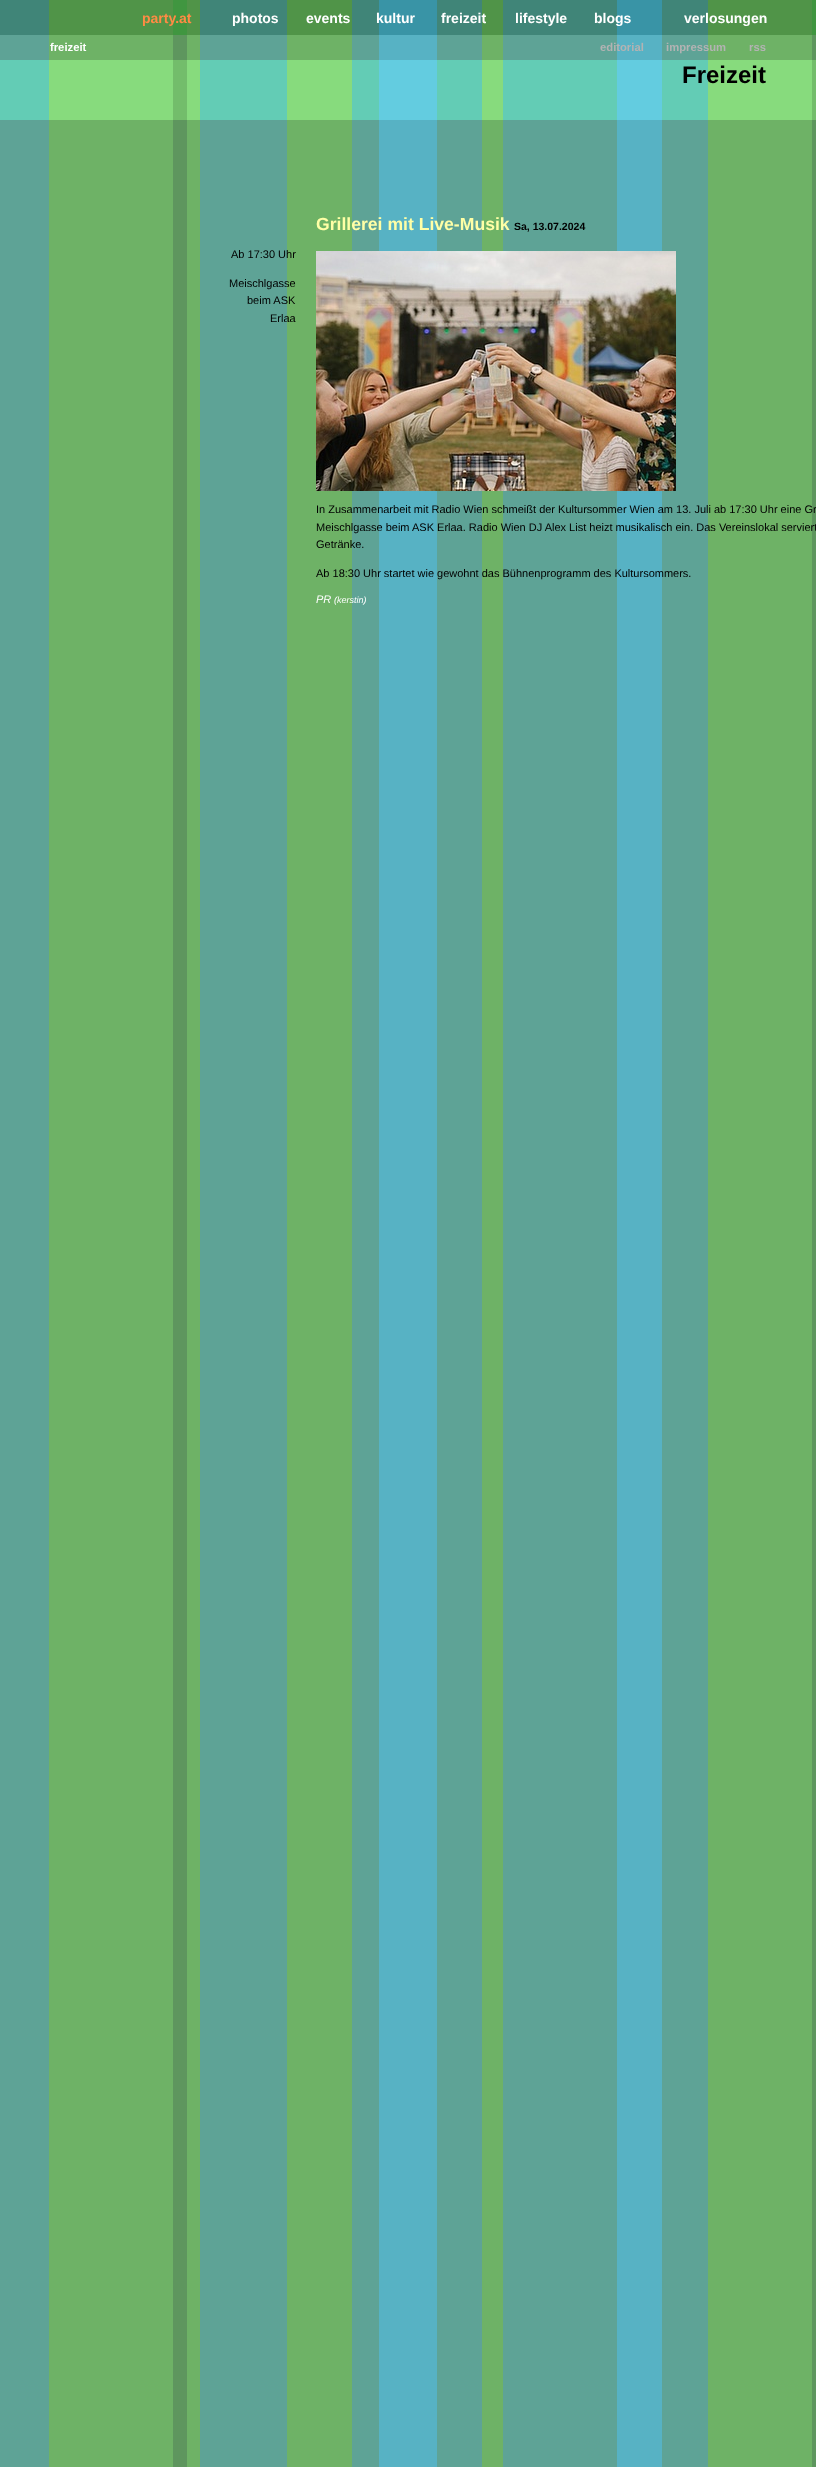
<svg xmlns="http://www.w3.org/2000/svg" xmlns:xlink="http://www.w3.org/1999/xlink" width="816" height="2467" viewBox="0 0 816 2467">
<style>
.cls-1{font:bold 14px Liberation Sans;fill:#ff8b44}
.cls-2{font:bold 14px Liberation Sans;fill:#ffffff}
.cls-3{font:bold 11.25px Liberation Sans;fill:#ffffff}
.cls-4{font:bold 11.25px Liberation Sans;fill:#b3b3b3}
.cls-5{font:bold 24px Liberation Sans;fill:#000000}
.cls-6{font:bold 17.6px Liberation Sans;fill:#ffffa6}
.cls-7{font:bold 10.5px Liberation Sans;fill:#000000}
.cls-8{font:11px Liberation Sans;fill:#000000}
.cls-9{font:italic 11px Liberation Sans;fill:#ffffff}
.cls-10{font:italic 9px Liberation Sans;fill:#ffffff}
</style>
<rect width="100%" height="100%" fill="#ffffff"/>
<image xlink:href="image0.png" x="0" y="35" width="816" height="2432"/>
<image xlink:href="image1.png" x="0" y="0" width="816" height="35"/>
<image xlink:href="image2.png" x="0" y="60" width="816" height="60"/>
<image xlink:href="image3.png" x="316" y="251" width="360" height="240"/>
<text class="cls-1" x="142" y="23">party.at</text>
<text class="cls-2" x="232" y="23">photos</text>
<text class="cls-2" x="306" y="23">events</text>
<text class="cls-2" x="376" y="23">kultur</text>
<text class="cls-2" x="441" y="23">freizeit</text>
<text class="cls-2" x="515" y="23">lifestyle</text>
<text class="cls-2" x="594" y="23">blogs</text>
<text class="cls-2" x="684" y="23">verlosungen</text>
<text class="cls-3" x="50" y="51">freizeit</text>
<text class="cls-4" x="600" y="51">editorial</text>
<text class="cls-4" x="666" y="51">impressum</text>
<text class="cls-4" x="749" y="51">rss</text>
<text class="cls-5" x="682" y="83">Freizeit</text>
<text class="cls-6" x="316" y="230">Grillerei mit Live-Musik</text>
<text class="cls-7" x="514" y="230">Sa, 13.07.2024</text>
<text class="cls-8" x="231" y="258">Ab 17:30 Uhr</text>
<text class="cls-8" x="229" y="287">Meischlgasse</text>
<text class="cls-8" x="247" y="304">beim ASK</text>
<text class="cls-8" x="270" y="322">Erlaa</text>
<text class="cls-8"><tspan x="316" y="513">In Zusammenarbeit mit Radio Wien schmeißt der Kultursommer Wien am 13. Juli ab 17:30 Uhr eine Gr</tspan><tspan x="316" y="531">Meischlgasse beim ASK Erlaa. Radio Wien DJ Alex List heizt musikalisch ein. Das Vereinslokal serviert</tspan><tspan x="316" y="548">Getränke.</tspan></text>
<text class="cls-8" x="316" y="577">Ab 18:30 Uhr startet wie gewohnt das Bühnenprogramm des Kultursommers.</text>
<text class="cls-9" x="316" y="603">PR</text>
<text class="cls-10" x="334" y="603">(kerstin)</text>
</svg>
